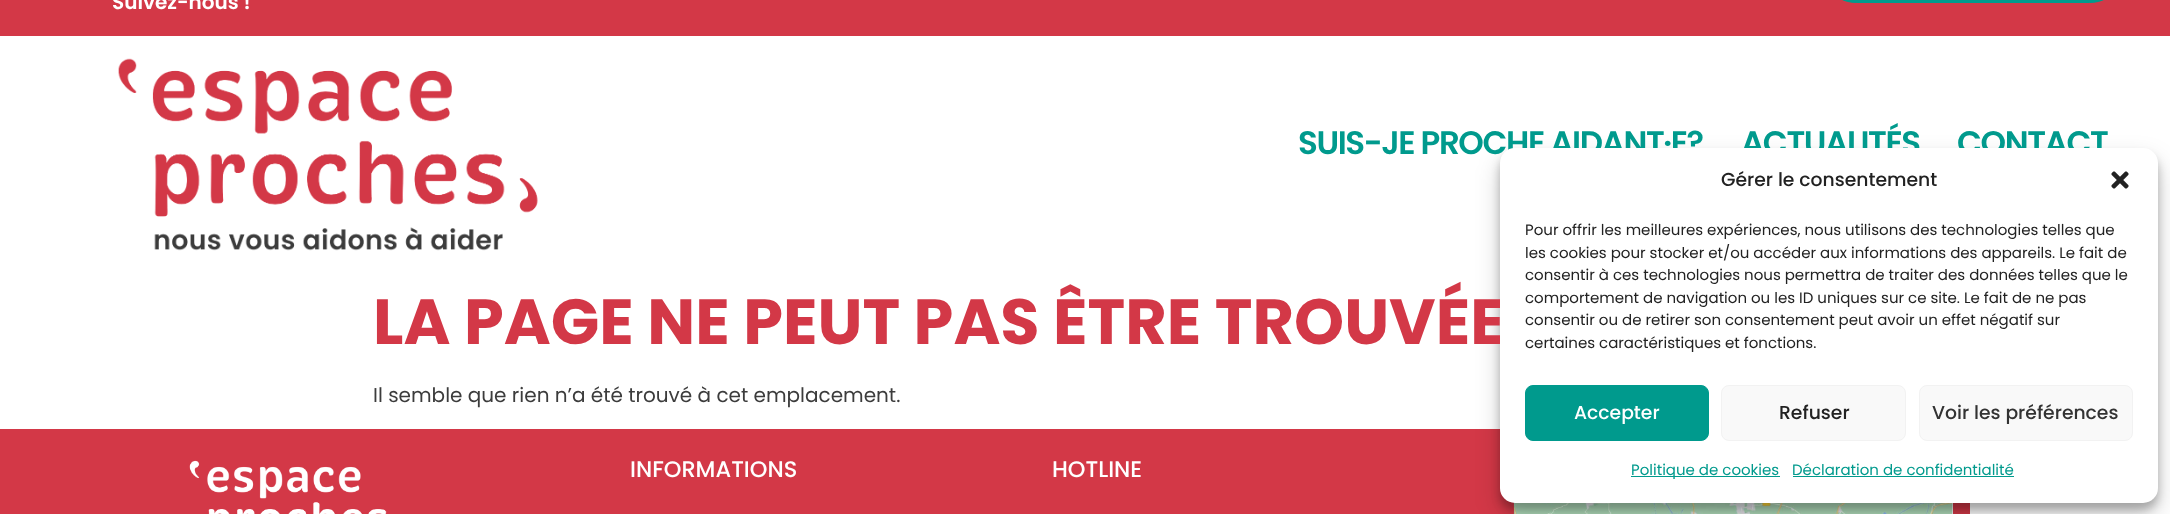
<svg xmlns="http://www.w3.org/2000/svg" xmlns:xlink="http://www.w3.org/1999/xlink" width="2170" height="514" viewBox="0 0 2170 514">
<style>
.cls-1{font:600 20px Poppins;fill:#ffffff}
.cls-2{font:600 32.5px Poppins;letter-spacing:-1.4px;fill:#009a8d}
.cls-3{font:bold 63.75px Poppins;fill:#d33847}
.cls-4{font:20px Poppins;fill:#3c3c3c}
.cls-5{font:500 18.75px Poppins;fill:#222222}
.cls-6{font:15px Poppins;fill:#222222}
.cls-7{font:500 18.75px Poppins;fill:#ffffff}
.cls-8{font:500 18.75px Poppins;fill:#333333}
.cls-9{font:15px Poppins;fill:#009a8d}
.cls-10{font:500 22.5px Poppins;fill:#ffffff}
</style>
<rect width="100%" height="100%" fill="#ffffff"/>
<rect fill="#d33847" x="0" y="0" width="2170" height="36"/>
<rect fill="#009a8d" stroke="#009a8d" x="1833.5" y="-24.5" width="279" height="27" rx="23"/>
<image xlink:href="image0.png" x="118" y="58" width="420" height="193"/>
<rect fill="#d33847" x="0" y="429" width="1970" height="85"/>
<rect fill="#ffffff" x="1952" y="503" width="1" height="11"/>
<image xlink:href="image3.png" x="1513" y="502" width="440" height="12"/>
<rect fill="#000000" fill-opacity="0.23" filter="blur(4px)" x="1500" y="155" width="658" height="355" rx="15"/>
<rect fill="#000000" fill-opacity="0.19" filter="blur(12.5px)" x="1500" y="160" width="658" height="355" rx="15"/>
<image xlink:href="image2.png" x="189" y="460" width="198" height="54"/>
<text class="cls-1" x="112" y="9">Suivez-nous !</text>
<text class="cls-2" x="1298" y="154">SUIS-JE PROCHE AIDANT·E?</text>
<text class="cls-2" x="1741" y="154">ACTUALITÉS</text>
<text class="cls-2" x="1957" y="154">CONTACT</text>
<text class="cls-3" x="373" y="344">LA PAGE NE PEUT PAS ÊTRE TROUVÉE</text>
<text class="cls-4" x="373" y="402">Il semble que rien n’a été trouvé à cet emplacement.</text>
<rect fill="#ffffff" x="1500" y="148" width="658" height="355" rx="15"/>
<text class="cls-5" x="1721" y="186">Gérer le consentement</text>
<image xlink:href="image1.png" x="2111" y="171" width="18" height="18"/>
<text class="cls-6"><tspan x="1525" y="235">Pour offrir les meilleures expériences, nous utilisons des technologies telles que</tspan><tspan x="1525" y="258">les cookies pour stocker et/ou accéder aux informations des appareils. Le fait de</tspan><tspan x="1525" y="280">consentir à ces technologies nous permettra de traiter des données telles que le</tspan><tspan x="1525" y="303">comportement de navigation ou les ID uniques sur ce site. Le fait de ne pas</tspan><tspan x="1525" y="325">consentir ou de retirer son consentement peut avoir un effet négatif sur</tspan><tspan x="1525" y="348">certaines caractéristiques et fonctions.</tspan></text>
<rect fill="#009a8d" stroke="#009a8d" x="1525.5" y="385.5" width="183" height="55" rx="7.5"/>
<text class="cls-7" x="1574" y="419">Accepter</text>
<rect fill="#f9f9f9" stroke="#f2f2f2" x="1721.5" y="385.5" width="184" height="55" rx="7.5"/>
<text class="cls-5" x="1779" y="419">Refuser</text>
<rect fill="#f9f9f9" stroke="#f2f2f2" x="1919.5" y="385.5" width="213" height="55" rx="7.5"/>
<text class="cls-8" x="1932" y="419">Voir les préférences</text>
<rect fill="#009a8d" x="1631" y="476" width="149" height="1"/>
<text class="cls-9" x="1631" y="475">Politique de cookies</text>
<text class="cls-9" x="1792" y="475">Déclaration de confidentialité</text>
<rect fill="#009a8d" x="1793" y="476" width="221" height="1"/>
<text class="cls-10" x="630" y="477">INFORMATIONS</text>
<text class="cls-10" x="1052" y="477">HOTLINE</text>
</svg>
